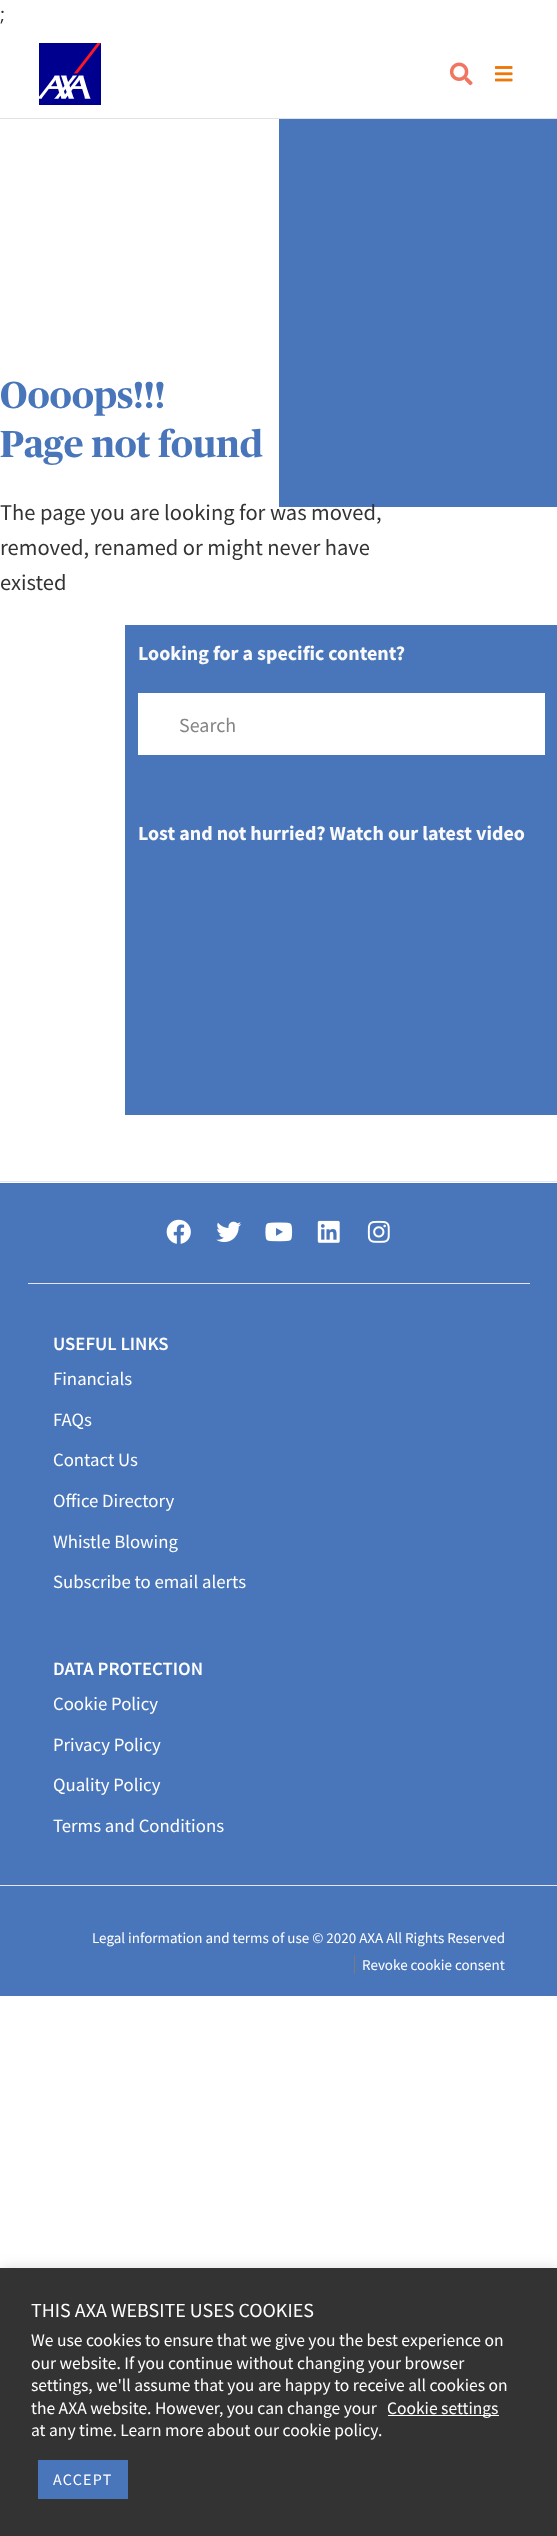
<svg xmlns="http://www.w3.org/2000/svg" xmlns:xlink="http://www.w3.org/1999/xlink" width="557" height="2536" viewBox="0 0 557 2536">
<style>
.cls-1{font:20px DM Sans;fill:#333333}
.cls-2{font:bold 37.5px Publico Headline;fill:#4976ba}
.cls-3{font:22.5px Source Sans Pro;fill:#333333}
.cls-4{font:bold 20px Source Sans Pro;fill:#f9f9f9}
.cls-5{font:20px Source Sans Pro;fill:#858585}
.cls-6{font:600 18.75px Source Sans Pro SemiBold;fill:#ffffff}
.cls-7{font:18.75px Source Sans Pro;fill:#ffffff}
.cls-8{font:15px Source Sans Pro;fill:#ffffff}
.cls-9{font:20px Source Sans Pro;fill:#ffffff}
.cls-10{font:17.5px Source Sans Pro;fill:#ffffff}
.cls-11{font:16px Source Sans Pro;letter-spacing:1.25px;fill:#ffffff}
</style>
<rect width="100%" height="100%" fill="#ffffff"/>
<rect fill="#dfe3e6" x="0" y="118" width="557" height="1"/>
<image xlink:href="image0.png" x="39" y="43" width="62" height="62"/>
<image xlink:href="image1.png" x="449" y="62" width="24" height="24"/>
<image xlink:href="image2.png" x="495" y="66" width="18" height="16"/>
<rect fill="#4976ba" x="279" y="119" width="278" height="388"/>
<rect fill="#4976ba" x="125" y="625" width="432" height="490"/>
<rect fill="#ffffff" x="138" y="693" width="407" height="62"/>
<rect fill="#4976ba" x="0" y="1183" width="557" height="702"/>
<rect fill="#e5e5f4" x="0" y="1181" width="557" height="1"/>
<rect fill="#e5e5f4" x="0" y="1885" width="557" height="1"/>
<rect fill="#e5e5f4" x="28" y="1283" width="502" height="1"/>
<image xlink:href="image3.png" x="166" y="1219" width="25" height="25"/>
<image xlink:href="image4.png" x="216" y="1221" width="26" height="21"/>
<image xlink:href="image5.png" x="265" y="1222" width="28" height="20"/>
<image xlink:href="image6.png" x="317" y="1220" width="23" height="23"/>
<image xlink:href="image7.png" x="367" y="1220" width="23" height="23"/>
<rect fill="#4976ba" x="0" y="1886" width="557" height="110"/>
<rect fill="#7a7a7a" x="354" y="1955" width="1" height="19"/>
<rect fill="#acabab" fill-opacity="0.3" filter="blur(6px)" x="0" y="2266" width="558" height="269"/>
<rect fill="#333333" x="0" y="2268" width="557" height="268"/>
<rect fill="#ffffff" x="388" y="2415" width="111" height="1"/>
<rect fill="#4976ba" x="38" y="2460" width="90" height="39"/>
<text class="cls-1" x="0" y="21">;</text>
<text class="cls-2"><tspan x="0" y="408">Oooops!!!</tspan><tspan x="0" y="457">Page not found</tspan></text>
<text class="cls-3"><tspan x="0" y="520">The page you are looking for was moved,</tspan><tspan x="0" y="555">removed, renamed or might never have</tspan><tspan x="0" y="590">existed</tspan></text>
<text class="cls-4" x="138" y="660">Looking for a specific content?</text>
<text class="cls-5" x="179" y="732">Search</text>
<text class="cls-4" x="138" y="840">Lost and not hurried? Watch our latest video</text>
<text class="cls-6" x="53" y="1350">USEFUL LINKS</text>
<text class="cls-7" x="53" y="1385">Financials</text>
<text class="cls-7" x="53" y="1426">FAQs</text>
<text class="cls-7" x="53" y="1466">Contact Us</text>
<text class="cls-7" x="53" y="1507">Office Directory</text>
<text class="cls-7" x="53" y="1548">Whistle Blowing</text>
<text class="cls-7" x="53" y="1588">Subscribe to email alerts</text>
<text class="cls-6" x="53" y="1675">DATA PROTECTION</text>
<text class="cls-7" x="53" y="1710">Cookie Policy</text>
<text class="cls-7" x="53" y="1751">Privacy Policy</text>
<text class="cls-7" x="53" y="1791">Quality Policy</text>
<text class="cls-7" x="53" y="1832">Terms and Conditions</text>
<text class="cls-8" x="92" y="1943">Legal information and terms of use © 2020 AXA All Rights Reserved</text>
<text class="cls-8" x="362" y="1970">Revoke cookie consent</text>
<text class="cls-9" x="31" y="2317">THIS AXA WEBSITE USES COOKIES</text>
<text class="cls-10"><tspan x="31" y="2346">We use cookies to ensure that we give you the best experience on</tspan><tspan x="31" y="2369">our website. If you continue without changing your browser</tspan><tspan x="31" y="2391">settings, we'll assume that you are happy to receive all cookies on</tspan><tspan x="31" y="2414">the AXA website. However, you can change your</tspan></text>
<text class="cls-10" x="387" y="2414">Cookie settings</text>
<text class="cls-10" x="31" y="2436">at any time. Learn more about our cookie policy.</text>
<text class="cls-11" x="53" y="2485">ACCEPT</text>
</svg>
